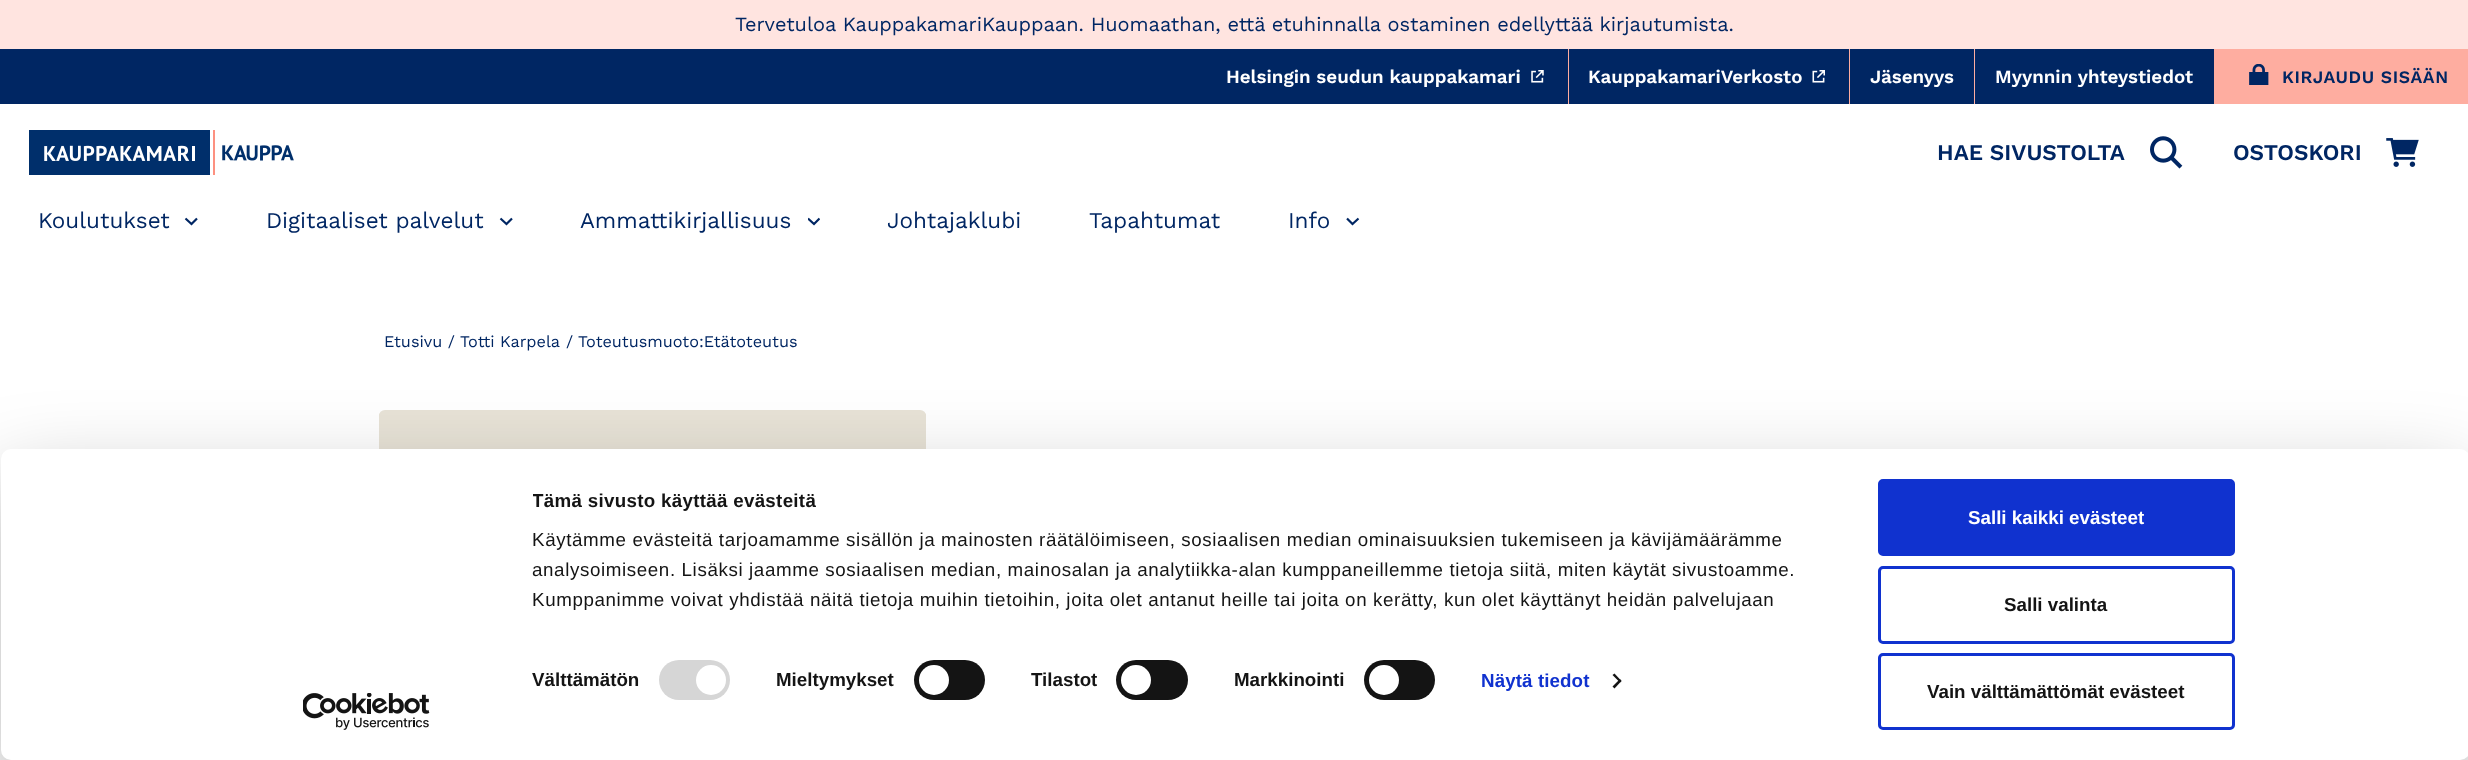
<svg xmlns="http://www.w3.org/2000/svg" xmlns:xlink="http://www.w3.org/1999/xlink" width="2468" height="760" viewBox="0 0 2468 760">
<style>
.cls-1{font:20px Work Sans;fill:#002663}
.cls-2{font:600 18.75px Work Sans;fill:#ffffff}
.cls-3{font:600 17.5px Work Sans;letter-spacing:0.62px;fill:#002663}
.cls-4{font:600 22.5px Work Sans;fill:#002663}
.cls-5{font:22.5px Work Sans;fill:#002663}
.cls-6{font:16.25px Work Sans;fill:#002663}
.cls-7{font:bold 18.75px Liberation Sans;letter-spacing:0.3px;fill:#141414}
.cls-8{font:18.75px Liberation Sans;letter-spacing:0.62px;fill:#141414}
.cls-9{font:bold 18.75px Liberation Sans;fill:#141414}
.cls-10{font:bold 18.75px Liberation Sans;letter-spacing:0.1px;fill:#1032cf}
.cls-11{font:bold 18.75px Liberation Sans;fill:#ffffff}
</style>
<defs>
<clipPath id="clip1"><rect x="808" y="215" width="12" height="13"/></clipPath>
<clipPath id="clip2"><rect x="533" y="486" width="1310" height="129"/></clipPath>
</defs>
<rect width="100%" height="100%" fill="#ffffff"/>
<rect fill="#ffe4e0" x="0" y="0" width="2468" height="49"/>
<rect fill="#002663" x="0" y="49" width="2214" height="55"/>
<rect fill="#feada0" x="1568" y="49" width="1" height="55"/>
<image xlink:href="image0.png" x="1531" y="70" width="13" height="13"/>
<rect fill="#feada0" x="1849" y="49" width="1" height="55"/>
<image xlink:href="image1.png" x="1812" y="70" width="13" height="13"/>
<rect fill="#feada0" x="1974" y="49" width="1" height="55"/>
<rect fill="#feada0" x="2214" y="49" width="254" height="55"/>
<image xlink:href="image2.png" x="2249" y="64" width="20" height="21"/>
<image xlink:href="image3.png" x="29" y="130" width="265" height="45"/>
<image xlink:href="image4.png" x="2150" y="136" width="33" height="33"/>
<image xlink:href="image5.png" x="2386" y="138" width="33" height="29"/>
<path fill="none" stroke="#002663" stroke-width="2.2" d="M185.5 218.5L191.5 224L197 218.5"/>
<path fill="none" stroke="#002663" stroke-width="2.2" d="M500.5 218.5L506.5 224L512 218.5"/>
<g clip-path="url(#clip1)">
<path fill="none" stroke="#002663" stroke-width="2.2" d="M808 218.5L814 224L819.5 218.5"/>
</g>
<path fill="none" stroke="#002663" stroke-width="2.2" d="M1347 218.5L1352.5 224L1358.5 218.5"/>
<image xlink:href="image6.png" x="379" y="410" width="547" height="39"/>
<rect fill="#000000" fill-opacity="0.3" filter="blur(44px)" x="1" y="486" width="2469" height="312" rx="10"/>
<rect fill="#ffffff" x="1" y="449" width="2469" height="311" rx="10"/>
<rect fill="#d6d6d6" x="659" y="660" width="71" height="40" rx="20"/>
<circle fill="#ffffff" cx="711" cy="680" r="15"/>
<rect fill="#141414" x="914" y="660" width="71" height="40" rx="20"/>
<circle fill="#ffffff" cx="934" cy="680" r="15"/>
<rect fill="#141414" x="1116" y="660" width="72" height="40" rx="20"/>
<circle fill="#ffffff" cx="1136" cy="680" r="15"/>
<rect fill="#141414" x="1364" y="660" width="71" height="40" rx="20"/>
<circle fill="#ffffff" cx="1384" cy="680" r="15"/>
<path fill="#141414" d="M1614.5 673.5L1621.5 681L1620 682.5L1612.5 675Z"/>
<path fill="#141414" d="M1620 679L1621.5 681L1614.5 688.5L1612.5 686.5Z"/>
<rect fill="#1032cf" stroke="#1032cf" stroke-width="3" x="1879.5" y="480.5" width="354" height="74" rx="3.5"/>
<rect fill="none" stroke="#1032cf" stroke-width="3" x="1879.5" y="567.5" width="354" height="75" rx="3.5"/>
<rect fill="none" stroke="#1032cf" stroke-width="3" x="1879.5" y="654.5" width="354" height="74" rx="3.5"/>
<image xlink:href="image7.png" x="303" y="693" width="127" height="37"/>
<text class="cls-1" x="735" y="31">Tervetuloa KauppakamariKauppaan. Huomaathan, että etuhinnalla ostaminen edellyttää kirjautumista.</text>
<text class="cls-2" x="1226" y="83">Helsingin seudun kauppakamari</text>
<text class="cls-2" x="1588" y="83">KauppakamariVerkosto</text>
<text class="cls-2" x="1870" y="83">Jäsenyys</text>
<text class="cls-2" x="1995" y="83">Myynnin yhteystiedot</text>
<text class="cls-3" x="2282" y="83">KIRJAUDU SISÄÄN</text>
<text class="cls-4" x="1937" y="160">HAE SIVUSTOLTA</text>
<text class="cls-4" x="2233" y="160">OSTOSKORI</text>
<text class="cls-5" x="38" y="228">Koulutukset</text>
<text class="cls-5" x="266" y="228">Digitaaliset palvelut</text>
<text class="cls-5" x="580" y="228">Ammattikirjallisuus</text>
<text class="cls-5" x="887" y="228">Johtajaklubi</text>
<text class="cls-5" x="1089" y="228">Tapahtumat</text>
<text class="cls-5" x="1288" y="228">Info</text>
<text class="cls-6" x="384" y="347">Etusivu /</text>
<text class="cls-6" x="460" y="347">Totti Karpela</text>
<text class="cls-6" x="566" y="347">/</text>
<text class="cls-6" x="578" y="347">Toteutusmuoto:Etätoteutus</text>
<g clip-path="url(#clip2)">
<text class="cls-7" x="532" y="507">Tämä sivusto käyttää evästeitä</text>
</g>
<text class="cls-8"><tspan x="532" y="546">Käytämme evästeitä tarjoamamme sisällön ja mainosten räätälöimiseen, sosiaalisen median ominaisuuksien tukemiseen ja kävijämäärämme</tspan><tspan x="532" y="576">analysoimiseen. Lisäksi jaamme sosiaalisen median, mainosalan ja analytiikka-alan kumppaneillemme tietoja siitä, miten käytät sivustoamme.</tspan><tspan x="532" y="606">Kumppanimme voivat yhdistää näitä tietoja muihin tietoihin, joita olet antanut heille tai joita on kerätty, kun olet käyttänyt heidän palvelujaan</tspan></text>
<text class="cls-9" x="532" y="686">Välttämätön</text>
<text class="cls-9" x="776" y="686">Mieltymykset</text>
<text class="cls-9" x="1031" y="686">Tilastot</text>
<text class="cls-9" x="1234" y="686">Markkinointi</text>
<text class="cls-10" x="1481" y="687">Näytä tiedot</text>
<text class="cls-11" x="1968" y="524">Salli kaikki evästeet</text>
<text class="cls-9" x="2004" y="611">Salli valinta</text>
<text class="cls-9" x="1927" y="698">Vain välttämättömät evästeet</text>
</svg>
